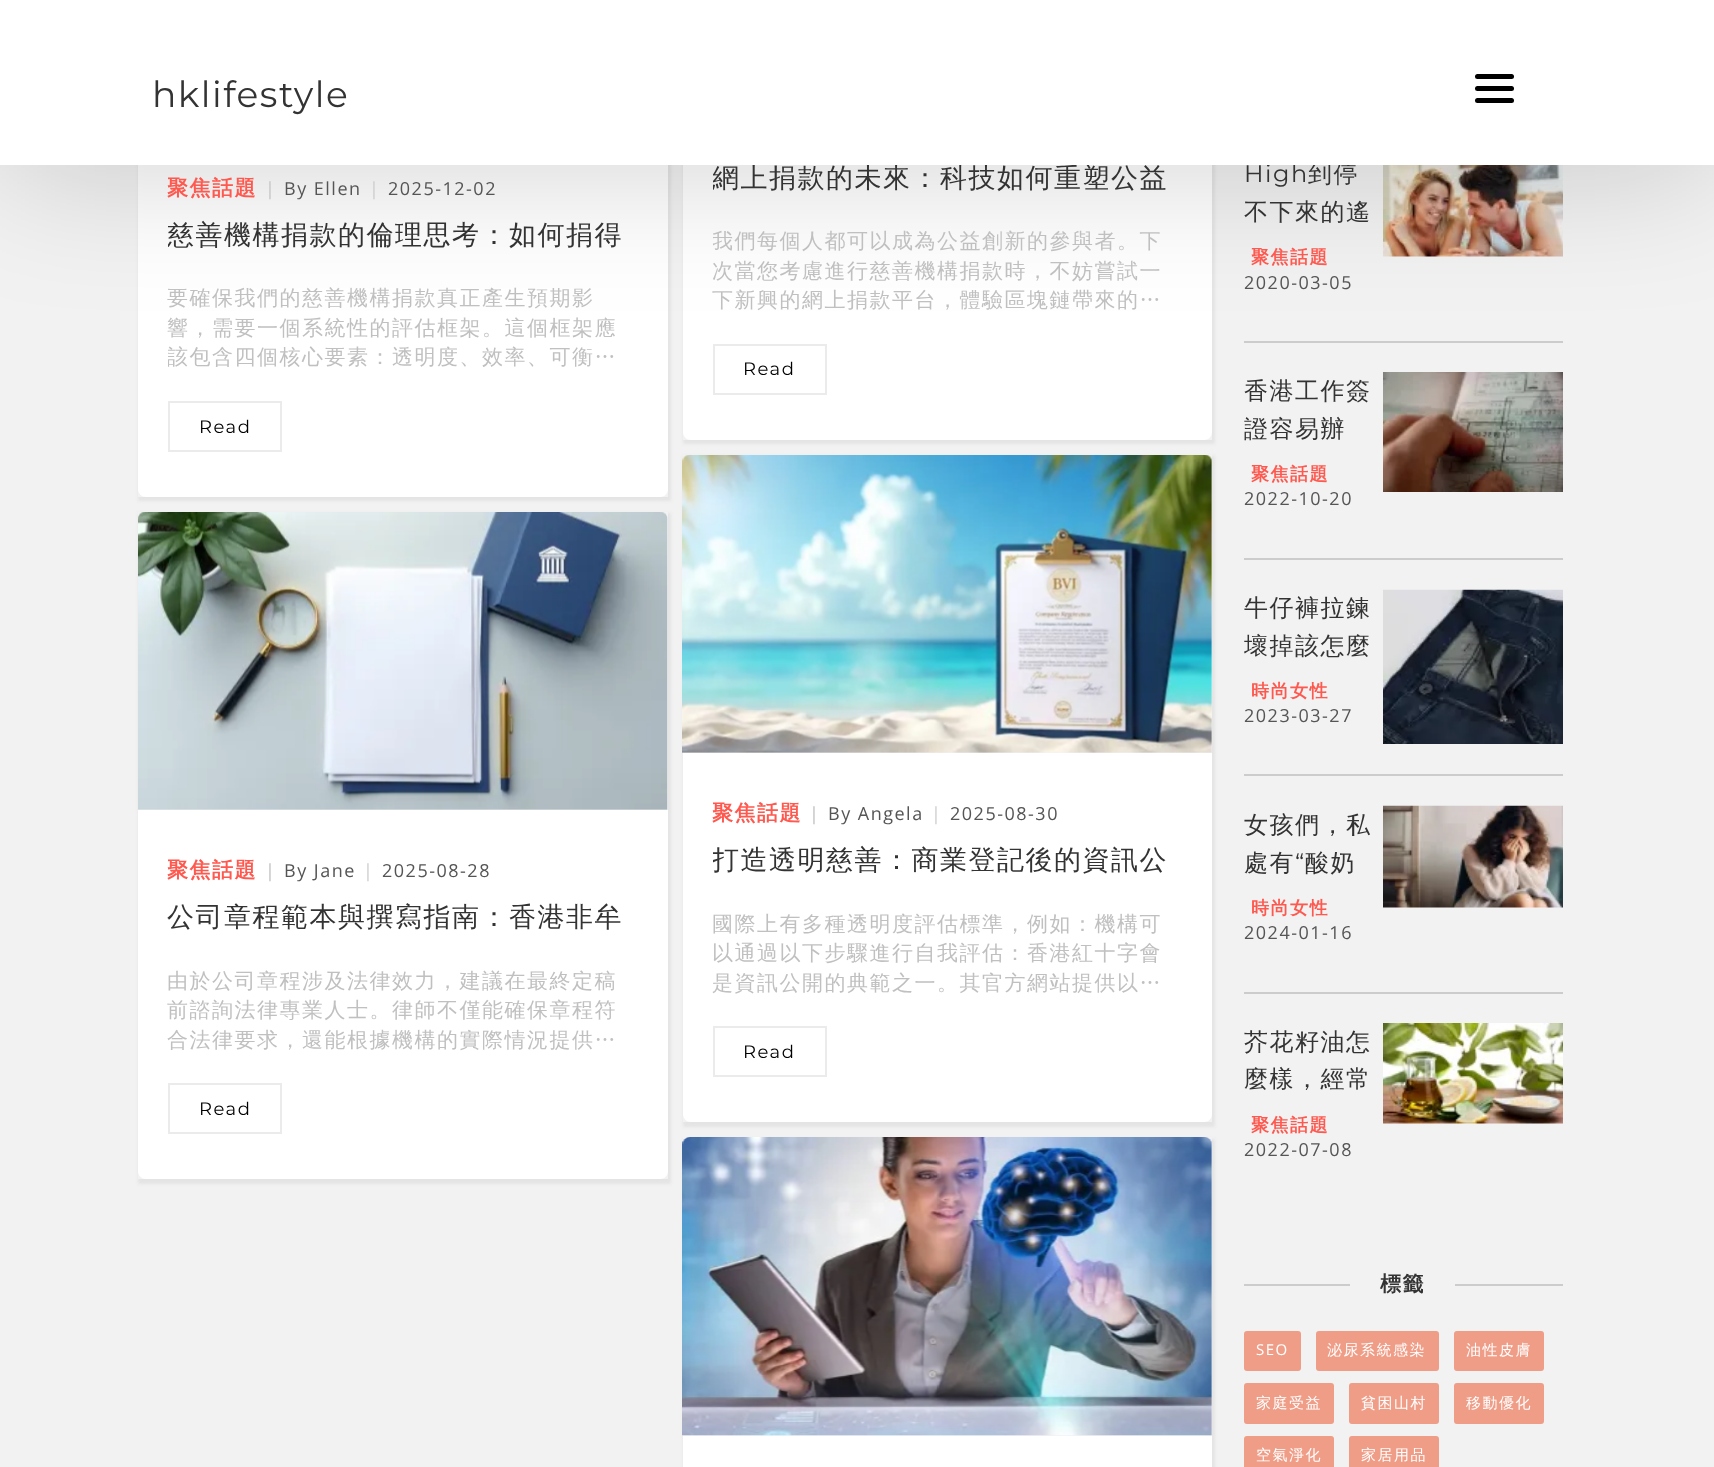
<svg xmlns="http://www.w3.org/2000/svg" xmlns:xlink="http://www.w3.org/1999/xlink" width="1714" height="1467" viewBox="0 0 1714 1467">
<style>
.cls-1{font:bold 21px WenQuanYi Zen Hei;letter-spacing:1.5px;fill:#ff594f}
.cls-2{font:600 18px Open Sans;letter-spacing:1.5px;fill:#cccccc}
.cls-3{font:18px Open Sans;letter-spacing:1.5px;fill:#555555}
.cls-4{font:18px Open Sans;letter-spacing:1.5px;fill:#cccccc}
.cls-5{font:500 27px WenQuanYi Zen Hei;letter-spacing:1.5px;fill:#333333}
.cls-6{font:500 21px WenQuanYi Zen Hei;letter-spacing:1.5px;fill:#c0c0c0}
.cls-7{font:18px Montserrat;letter-spacing:1.5px;fill:#000000}
.cls-8{font:24px Montserrat;letter-spacing:1.5px;fill:#333333}
.cls-9{font:500 24px WenQuanYi Zen Hei;letter-spacing:1.5px;fill:#333333}
.cls-10{font:36px Montserrat;letter-spacing:1.5px;fill:#333333}
.cls-11{font:bold 18px WenQuanYi Zen Hei;letter-spacing:1.5px;fill:#ff594f}
.cls-12{font:bold 21px WenQuanYi Zen Hei;letter-spacing:1.5px;fill:#333333}
.cls-13{font:15px Open Sans;letter-spacing:1.5px;fill:#ffffff}
.cls-14{font:500 15px WenQuanYi Zen Hei;letter-spacing:1.5px;fill:#ffffff}
</style>
<defs>
<clipPath id="clip1"><path d="M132 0H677V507H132ZM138-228H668V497H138Z" clip-rule="evenodd"/></clipPath>
<clipPath id="clip2"><path d="M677 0H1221V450H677ZM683-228H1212V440H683Z" clip-rule="evenodd"/></clipPath>
<clipPath id="clip3"><path d="M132 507H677V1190H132ZM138 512H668V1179H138Z" clip-rule="evenodd"/></clipPath>
<clipPath id="clip4"><path d="M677 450H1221V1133H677ZM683 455H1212V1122H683Z" clip-rule="evenodd"/></clipPath>
<clipPath id="clip5"><path d="M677 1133H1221V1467H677ZM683 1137H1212V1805H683Z" clip-rule="evenodd"/></clipPath>
<clipPath id="clip6"><rect x="168" y="218" width="470" height="40"/></clipPath>
<clipPath id="clip7"><rect x="168" y="284" width="470" height="87"/></clipPath>
<clipPath id="clip8"><rect x="713" y="161" width="456" height="40"/></clipPath>
<clipPath id="clip9"><rect x="713" y="227" width="469" height="87"/></clipPath>
<clipPath id="clip10"><rect x="713" y="843" width="469" height="41"/></clipPath>
<clipPath id="clip11"><rect x="1244" y="590" width="132" height="75"/></clipPath>
</defs>
<rect width="100%" height="100%" fill="#f2f2f2"/>
<g clip-path="url(#clip1)">
<rect fill="#e4e4e4" filter="blur(1.5px)" x="138" y="-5" width="533" height="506"/>
</g>
<path fill="#ffffff" d="M138 128H668V489C668 493.5 664.5 497 660 497H146C141.5 497 138 493.5 138 489Z"/>
<g clip-path="url(#clip2)">
<rect fill="#e4e4e4" filter="blur(1.5px)" x="683" y="-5" width="532" height="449"/>
</g>
<path fill="#ffffff" d="M683 71H1212V432C1212 436.5 1208.5 440 1204 440H691C686.5 440 683 436.5 683 432Z"/>
<rect fill="none" stroke="#ebebeb" stroke-width="2" x="714" y="345" width="112" height="49"/>
<rect fill="#cccccc" x="1244" y="341" width="319" height="2"/>
<image xlink:href="image3.png" x="1383" y="165" width="180" height="92"/>
<image xlink:href="image4.png" x="1383" y="372" width="180" height="120"/>
<rect fill="#000000" fill-opacity="0.18" filter="blur(69px)" x="0" y="3" width="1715" height="165"/>
<rect fill="none" stroke="#ebebeb" stroke-width="2" x="169" y="402" width="112" height="49"/>
<g clip-path="url(#clip3)">
<rect fill="#e4e4e4" filter="blur(1.5px)" x="138" y="513" width="533" height="671"/>
</g>
<image xlink:href="image0.png" x="138" y="512" width="530" height="298"/>
<path fill="#ffffff" d="M138 810H668V1171C668 1175.5 664.5 1179 660 1179H146C141.5 1179 138 1175.5 138 1171Z"/>
<rect fill="none" stroke="#ebebeb" stroke-width="2" x="169" y="1084" width="112" height="49"/>
<g clip-path="url(#clip4)">
<rect fill="#e4e4e4" filter="blur(1.5px)" x="683" y="456" width="532" height="671"/>
</g>
<image xlink:href="image1.png" x="682" y="455" width="530" height="298"/>
<path fill="#ffffff" d="M683 753H1212V1114C1212 1118.5 1208.5 1122 1204 1122H691C686.5 1122 683 1118.5 683 1114Z"/>
<rect fill="none" stroke="#ebebeb" stroke-width="2" x="714" y="1027" width="112" height="49"/>
<g clip-path="url(#clip5)">
<rect fill="#e4e4e4" filter="blur(1.5px)" x="683" y="1139" width="532" height="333"/>
</g>
<image xlink:href="image2.png" x="682" y="1137" width="530" height="299"/>
<rect fill="#ffffff" x="683" y="1436" width="529" height="31"/>
<rect fill="#cccccc" x="1244" y="558" width="319" height="2"/>
<rect fill="#cccccc" x="1244" y="774" width="319" height="2"/>
<image xlink:href="image5.png" x="1383" y="589" width="180" height="155"/>
<rect fill="#cccccc" x="1244" y="992" width="319" height="2"/>
<image xlink:href="image6.png" x="1383" y="805" width="180" height="103"/>
<image xlink:href="image7.png" x="1383" y="1023" width="180" height="101"/>
<rect fill="#cccccc" x="1244" y="1284" width="319" height="2"/>
<rect fill="#f2f2f2" x="1350" y="1284" width="105" height="2"/>
<rect fill="#ef9d87" x="1244" y="1331" width="57" height="40" rx="3"/>
<rect fill="#ef9d87" x="1316" y="1331" width="123" height="40" rx="3"/>
<rect fill="#ef9d87" x="1454" y="1331" width="90" height="40" rx="3"/>
<rect fill="#ef9d87" x="1244" y="1383" width="90" height="41" rx="3"/>
<rect fill="#ef9d87" x="1349" y="1383" width="90" height="41" rx="3"/>
<rect fill="#ef9d87" x="1454" y="1383" width="90" height="41" rx="3"/>
<rect fill="#ef9d87" x="1244" y="1436" width="90" height="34" rx="3"/>
<rect fill="#ef9d87" x="1349" y="1436" width="90" height="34" rx="3"/>
<text class="cls-1" x="167" y="195">聚焦話題</text>
<text class="cls-2" x="265" y="195">|</text>
<text class="cls-3" x="284" y="195">By Ellen</text>
<text class="cls-4" x="369" y="195">|</text>
<text class="cls-3" x="388" y="195">2025-12-02</text>
<g clip-path="url(#clip6)">
<text class="cls-5" x="167" y="244">慈善機構捐款的倫理思考：如何捐得</text>
</g>
<text class="cls-6"><tspan x="167" y="305">要確保我們的慈善機構捐款真正產生預期影</tspan><tspan x="167" y="335">響，需要一個系統性的評估框架。這個框架應</tspan></text>
<g clip-path="url(#clip7)">
<text class="cls-6" x="167" y="364">該包含四個核心要素：透明度、效率、可衡…</text>
</g>
<text class="cls-7" x="199" y="433">Read</text>
<g clip-path="url(#clip8)">
<text class="cls-5" x="712" y="187">網上捐款的未來：科技如何重塑公益</text>
</g>
<g clip-path="url(#clip9)">
<text class="cls-6" x="712" y="248">我們每個人都可以成為公益創新的參與者。下</text>
</g>
<text class="cls-6"><tspan x="712" y="278">次當您考慮進行慈善機構捐款時，不妨嘗試一</tspan><tspan x="712" y="307">下新興的網上捐款平台，體驗區塊鏈帶來的…</tspan></text>
<text class="cls-7" x="743" y="375">Read</text>
<text class="cls-1" x="167" y="877">聚焦話題</text>
<text class="cls-2" x="265" y="877">|</text>
<text class="cls-3" x="284" y="877">By Jane</text>
<text class="cls-4" x="363" y="877">|</text>
<text class="cls-3" x="382" y="877">2025-08-28</text>
<text class="cls-5" x="167" y="926">公司章程範本與撰寫指南：香港非牟</text>
<text class="cls-6"><tspan x="167" y="988">由於公司章程涉及法律效力，建議在最終定稿</tspan><tspan x="167" y="1017">前諮詢法律專業人士。律師不僅能確保章程符</tspan><tspan x="167" y="1047">合法律要求，還能根據機構的實際情況提供…</tspan></text>
<text class="cls-7" x="199" y="1115">Read</text>
<text class="cls-1" x="712" y="820">聚焦話題</text>
<text class="cls-2" x="809" y="820">|</text>
<text class="cls-3" x="828" y="820">By Angela</text>
<text class="cls-4" x="931" y="820">|</text>
<text class="cls-3" x="950" y="820">2025-08-30</text>
<g clip-path="url(#clip10)">
<text class="cls-5" x="712" y="869">打造透明慈善：商業登記後的資訊公</text>
</g>
<text class="cls-6"><tspan x="712" y="931">國際上有多種透明度評估標準，例如：機構可</tspan><tspan x="712" y="960">以通過以下步驟進行自我評估：香港紅十字會</tspan><tspan x="712" y="990">是資訊公開的典範之一。其官方網站提供以…</tspan></text>
<text class="cls-7" x="743" y="1058">Read</text>
<text class="cls-8" x="1244" y="182">High</text>
<text class="cls-9" x="1308" y="182">到停</text>
<rect fill="#ffffff" x="0" y="0" width="1714" height="165"/>
<rect fill="#000000" x="1475" y="98" width="39" height="5" rx="2.5"/>
<rect fill="#000000" x="1475" y="74" width="39" height="5" rx="2.5"/>
<rect fill="#000000" x="1475" y="86" width="39" height="5" rx="2.5"/>
<text class="cls-10" x="152" y="107">hklifestyle</text>
<text class="cls-9" x="1244" y="220">不下來的遙</text>
<text class="cls-11" x="1251" y="263">聚焦話題</text>
<text class="cls-3" x="1244" y="289">2020-03-05</text>
<text class="cls-9"><tspan x="1244" y="399">香港工作簽</tspan><tspan x="1244" y="437">證容易辦</tspan></text>
<text class="cls-11" x="1251" y="480">聚焦話題</text>
<text class="cls-3" x="1244" y="505">2022-10-20</text>
<text class="cls-9" x="1244" y="616">牛仔褲拉鍊</text>
<g clip-path="url(#clip11)">
<text class="cls-9" x="1244" y="654">壞掉該怎麼</text>
</g>
<text class="cls-11" x="1251" y="697">時尚女性</text>
<text class="cls-3" x="1244" y="722">2023-03-27</text>
<text class="cls-9"><tspan x="1244" y="833">女孩們，私</tspan><tspan x="1244" y="871">處有</tspan></text>
<text class="cls-8" x="1295" y="871">“</text>
<text class="cls-9" x="1305" y="871">酸奶</text>
<text class="cls-11" x="1251" y="914">時尚女性</text>
<text class="cls-3" x="1244" y="939">2024-01-16</text>
<text class="cls-9"><tspan x="1244" y="1050">芥花籽油怎</tspan><tspan x="1244" y="1087">麼樣，經常</tspan></text>
<text class="cls-11" x="1251" y="1131">聚焦話題</text>
<text class="cls-3" x="1244" y="1156">2022-07-08</text>
<text class="cls-12" x="1380" y="1291">標籤</text>
<text class="cls-13" x="1256" y="1355">SEO</text>
<text class="cls-14" x="1327" y="1355">泌尿系統感染</text>
<text class="cls-14" x="1466" y="1355">油性皮膚</text>
<text class="cls-14" x="1256" y="1408">家庭受益</text>
<text class="cls-14" x="1361" y="1408">貧困山村</text>
<text class="cls-14" x="1466" y="1408">移動優化</text>
<text class="cls-14" x="1256" y="1460">空氣淨化</text>
<text class="cls-14" x="1361" y="1460">家居用品</text>
</svg>
